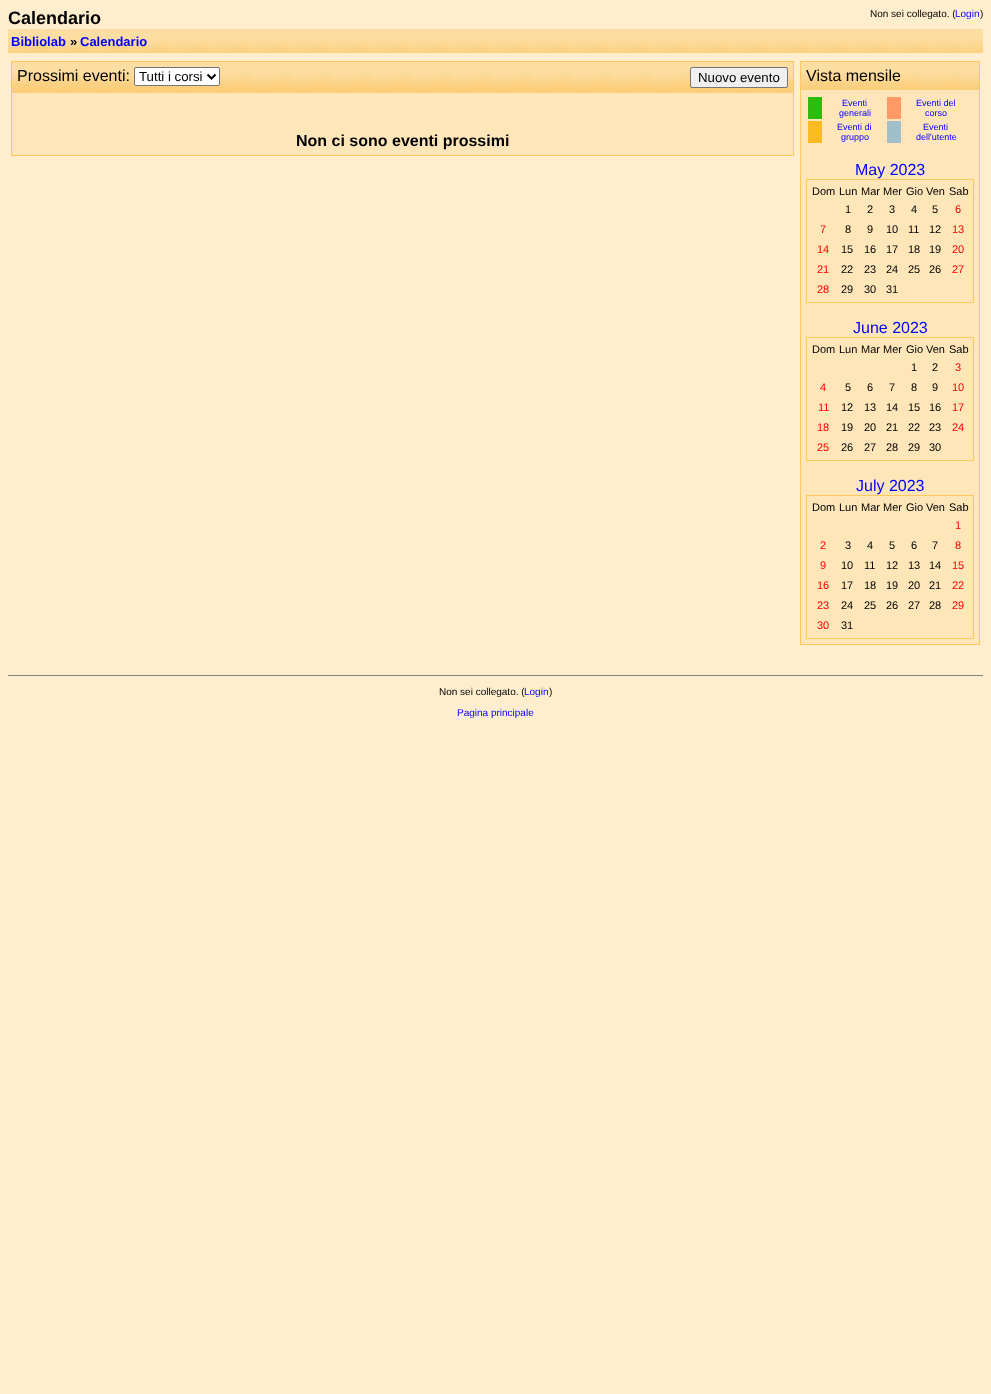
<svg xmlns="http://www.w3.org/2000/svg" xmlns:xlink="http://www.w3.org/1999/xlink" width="991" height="1394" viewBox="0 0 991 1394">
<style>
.cls-1{font:bold 18px Liberation Sans;fill:#000000}
.cls-2{font:10px Liberation Sans;fill:#000000}
.cls-3{font:10px Liberation Sans;fill:#0000ff}
.cls-4{font:bold 13px Liberation Sans;fill:#0000ff}
.cls-5{font:bold 13px Liberation Sans;fill:#000000}
.cls-6{font:16px Liberation Sans;fill:#000000}
.cls-7{font:13.25px Liberation Sans;fill:#000000}
.cls-8{font:bold 16px Liberation Sans;fill:#000000}
.cls-9{font:9px Liberation Sans;fill:#0000ff}
.cls-10{font:16px Liberation Sans;fill:#0000ff}
.cls-11{font:11px Liberation Sans;fill:#000000}
.cls-12{font:11px Liberation Sans;fill:#ff0000}
</style>
<rect width="100%" height="100%" fill="#ffeece"/>
<image xlink:href="image0.png" x="8" y="29" width="949" height="24"/>
<image xlink:href="image1.png" x="957" y="29" width="26" height="24"/>
<rect fill="none" stroke="#ffc85f" x="11.5" y="61.5" width="782" height="94"/>
<image xlink:href="image2.png" x="12" y="62" width="781" height="31"/>
<rect fill="#ffffff" stroke="#767676" x="134.5" y="67.5" width="85" height="18" rx="1.5"/>
<path fill="none" stroke="#000000" stroke-width="2" d="M207.5 74.5L211.5 78.5L215.5 74.5"/>
<rect fill="#efefef" stroke="#767676" x="690.5" y="67.5" width="97" height="20" rx="1.5"/>
<rect fill="#fee6b9" x="12" y="93" width="781" height="62"/>
<rect fill="none" stroke="#ffc85f" x="800.5" y="61.5" width="179" height="583"/>
<image xlink:href="image3.png" x="801" y="62" width="178" height="28"/>
<rect fill="#fee6b9" x="801" y="90" width="178" height="554"/>
<rect fill="#2eba0e" x="808" y="97" width="14" height="22"/>
<rect fill="#ff9966" x="887" y="97" width="14" height="22"/>
<rect fill="#fbbb23" x="808" y="121" width="14" height="22"/>
<rect fill="#a1becb" x="887" y="121" width="14" height="22"/>
<rect fill="none" stroke="#ffc85f" x="806.5" y="179.5" width="167" height="123"/>
<rect fill="none" stroke="#ffc85f" x="806.5" y="337.5" width="167" height="123"/>
<rect fill="none" stroke="#ffc85f" x="806.5" y="495.5" width="167" height="143"/>
<rect fill="#808080" x="8" y="675" width="975" height="1"/>
<text class="cls-1" x="8" y="24">Calendario</text>
<text class="cls-2" x="870" y="17">Non sei collegato. (</text>
<text class="cls-3" x="955" y="17">Login</text>
<text class="cls-2" x="980" y="17">)</text>
<text class="cls-4" x="11" y="46">Bibliolab</text>
<text class="cls-5" x="70" y="46">»</text>
<text class="cls-4" x="80" y="46">Calendario</text>
<text class="cls-6" x="17" y="81">Prossimi eventi:</text>
<text class="cls-7" x="139" y="81">Tutti i corsi</text>
<text class="cls-7" x="698" y="82">Nuovo evento</text>
<text class="cls-8" x="296" y="146">Non ci sono eventi prossimi</text>
<text class="cls-6" x="806" y="81">Vista mensile</text>
<text class="cls-9" x="842" y="106">Eventi</text>
<text class="cls-9" x="839" y="116">generali</text>
<text class="cls-9" x="916" y="106">Eventi del</text>
<text class="cls-9" x="925" y="116">corso</text>
<text class="cls-9" x="837" y="130">Eventi di</text>
<text class="cls-9" x="841" y="140">gruppo</text>
<text class="cls-9" x="923" y="130">Eventi</text>
<text class="cls-9" x="916" y="140">dell'utente</text>
<text class="cls-10" x="855" y="175">May 2023</text>
<text class="cls-11" x="812" y="195">Dom</text>
<text class="cls-11" x="839" y="195">Lun</text>
<text class="cls-11" x="861" y="195">Mar</text>
<text class="cls-11" x="883" y="195">Mer</text>
<text class="cls-11" x="906" y="195">Gio</text>
<text class="cls-11" x="926" y="195">Ven</text>
<text class="cls-11" x="949" y="195">Sab</text>
<text class="cls-11" x="845" y="213">1</text>
<text class="cls-11" x="867" y="213">2</text>
<text class="cls-11" x="889" y="213">3</text>
<text class="cls-11" x="911" y="213">4</text>
<text class="cls-11" x="932" y="213">5</text>
<text class="cls-12" x="955" y="213">6</text>
<text class="cls-12" x="820" y="233">7</text>
<text class="cls-11" x="845" y="233">8</text>
<text class="cls-11" x="867" y="233">9</text>
<text class="cls-11" x="886" y="233">10</text>
<text class="cls-11" x="908" y="233">11</text>
<text class="cls-11" x="929" y="233">12</text>
<text class="cls-12" x="952" y="233">13</text>
<text class="cls-12" x="817" y="253">14</text>
<text class="cls-11" x="841" y="253">15</text>
<text class="cls-11" x="864" y="253">16</text>
<text class="cls-11" x="886" y="253">17</text>
<text class="cls-11" x="908" y="253">18</text>
<text class="cls-11" x="929" y="253">19</text>
<text class="cls-12" x="952" y="253">20</text>
<text class="cls-12" x="817" y="273">21</text>
<text class="cls-11" x="841" y="273">22</text>
<text class="cls-11" x="864" y="273">23</text>
<text class="cls-11" x="886" y="273">24</text>
<text class="cls-11" x="908" y="273">25</text>
<text class="cls-11" x="929" y="273">26</text>
<text class="cls-12" x="952" y="273">27</text>
<text class="cls-12" x="817" y="293">28</text>
<text class="cls-11" x="841" y="293">29</text>
<text class="cls-11" x="864" y="293">30</text>
<text class="cls-11" x="886" y="293">31</text>
<text class="cls-10" x="853" y="333">June 2023</text>
<text class="cls-11" x="812" y="353">Dom</text>
<text class="cls-11" x="839" y="353">Lun</text>
<text class="cls-11" x="861" y="353">Mar</text>
<text class="cls-11" x="883" y="353">Mer</text>
<text class="cls-11" x="906" y="353">Gio</text>
<text class="cls-11" x="926" y="353">Ven</text>
<text class="cls-11" x="949" y="353">Sab</text>
<text class="cls-11" x="911" y="371">1</text>
<text class="cls-11" x="932" y="371">2</text>
<text class="cls-12" x="955" y="371">3</text>
<text class="cls-12" x="820" y="391">4</text>
<text class="cls-11" x="845" y="391">5</text>
<text class="cls-11" x="867" y="391">6</text>
<text class="cls-11" x="889" y="391">7</text>
<text class="cls-11" x="911" y="391">8</text>
<text class="cls-11" x="932" y="391">9</text>
<text class="cls-12" x="952" y="391">10</text>
<text class="cls-12" x="818" y="411">11</text>
<text class="cls-11" x="841" y="411">12</text>
<text class="cls-11" x="864" y="411">13</text>
<text class="cls-11" x="886" y="411">14</text>
<text class="cls-11" x="908" y="411">15</text>
<text class="cls-11" x="929" y="411">16</text>
<text class="cls-12" x="952" y="411">17</text>
<text class="cls-12" x="817" y="431">18</text>
<text class="cls-11" x="841" y="431">19</text>
<text class="cls-11" x="864" y="431">20</text>
<text class="cls-11" x="886" y="431">21</text>
<text class="cls-11" x="908" y="431">22</text>
<text class="cls-11" x="929" y="431">23</text>
<text class="cls-12" x="952" y="431">24</text>
<text class="cls-12" x="817" y="451">25</text>
<text class="cls-11" x="841" y="451">26</text>
<text class="cls-11" x="864" y="451">27</text>
<text class="cls-11" x="886" y="451">28</text>
<text class="cls-11" x="908" y="451">29</text>
<text class="cls-11" x="929" y="451">30</text>
<text class="cls-10" x="856" y="491">July 2023</text>
<text class="cls-11" x="812" y="511">Dom</text>
<text class="cls-11" x="839" y="511">Lun</text>
<text class="cls-11" x="861" y="511">Mar</text>
<text class="cls-11" x="883" y="511">Mer</text>
<text class="cls-11" x="906" y="511">Gio</text>
<text class="cls-11" x="926" y="511">Ven</text>
<text class="cls-11" x="949" y="511">Sab</text>
<text class="cls-12" x="955" y="529">1</text>
<text class="cls-12" x="820" y="549">2</text>
<text class="cls-11" x="845" y="549">3</text>
<text class="cls-11" x="867" y="549">4</text>
<text class="cls-11" x="889" y="549">5</text>
<text class="cls-11" x="911" y="549">6</text>
<text class="cls-11" x="932" y="549">7</text>
<text class="cls-12" x="955" y="549">8</text>
<text class="cls-12" x="820" y="569">9</text>
<text class="cls-11" x="841" y="569">10</text>
<text class="cls-11" x="864" y="569">11</text>
<text class="cls-11" x="886" y="569">12</text>
<text class="cls-11" x="908" y="569">13</text>
<text class="cls-11" x="929" y="569">14</text>
<text class="cls-12" x="952" y="569">15</text>
<text class="cls-12" x="817" y="589">16</text>
<text class="cls-11" x="841" y="589">17</text>
<text class="cls-11" x="864" y="589">18</text>
<text class="cls-11" x="886" y="589">19</text>
<text class="cls-11" x="908" y="589">20</text>
<text class="cls-11" x="929" y="589">21</text>
<text class="cls-12" x="952" y="589">22</text>
<text class="cls-12" x="817" y="609">23</text>
<text class="cls-11" x="841" y="609">24</text>
<text class="cls-11" x="864" y="609">25</text>
<text class="cls-11" x="886" y="609">26</text>
<text class="cls-11" x="908" y="609">27</text>
<text class="cls-11" x="929" y="609">28</text>
<text class="cls-12" x="952" y="609">29</text>
<text class="cls-12" x="817" y="629">30</text>
<text class="cls-11" x="841" y="629">31</text>
<text class="cls-2" x="439" y="695">Non sei collegato. (</text>
<text class="cls-3" x="524" y="695">Login</text>
<text class="cls-2" x="549" y="695">)</text>
<text class="cls-3" x="457" y="716">Pagina principale</text>
</svg>
